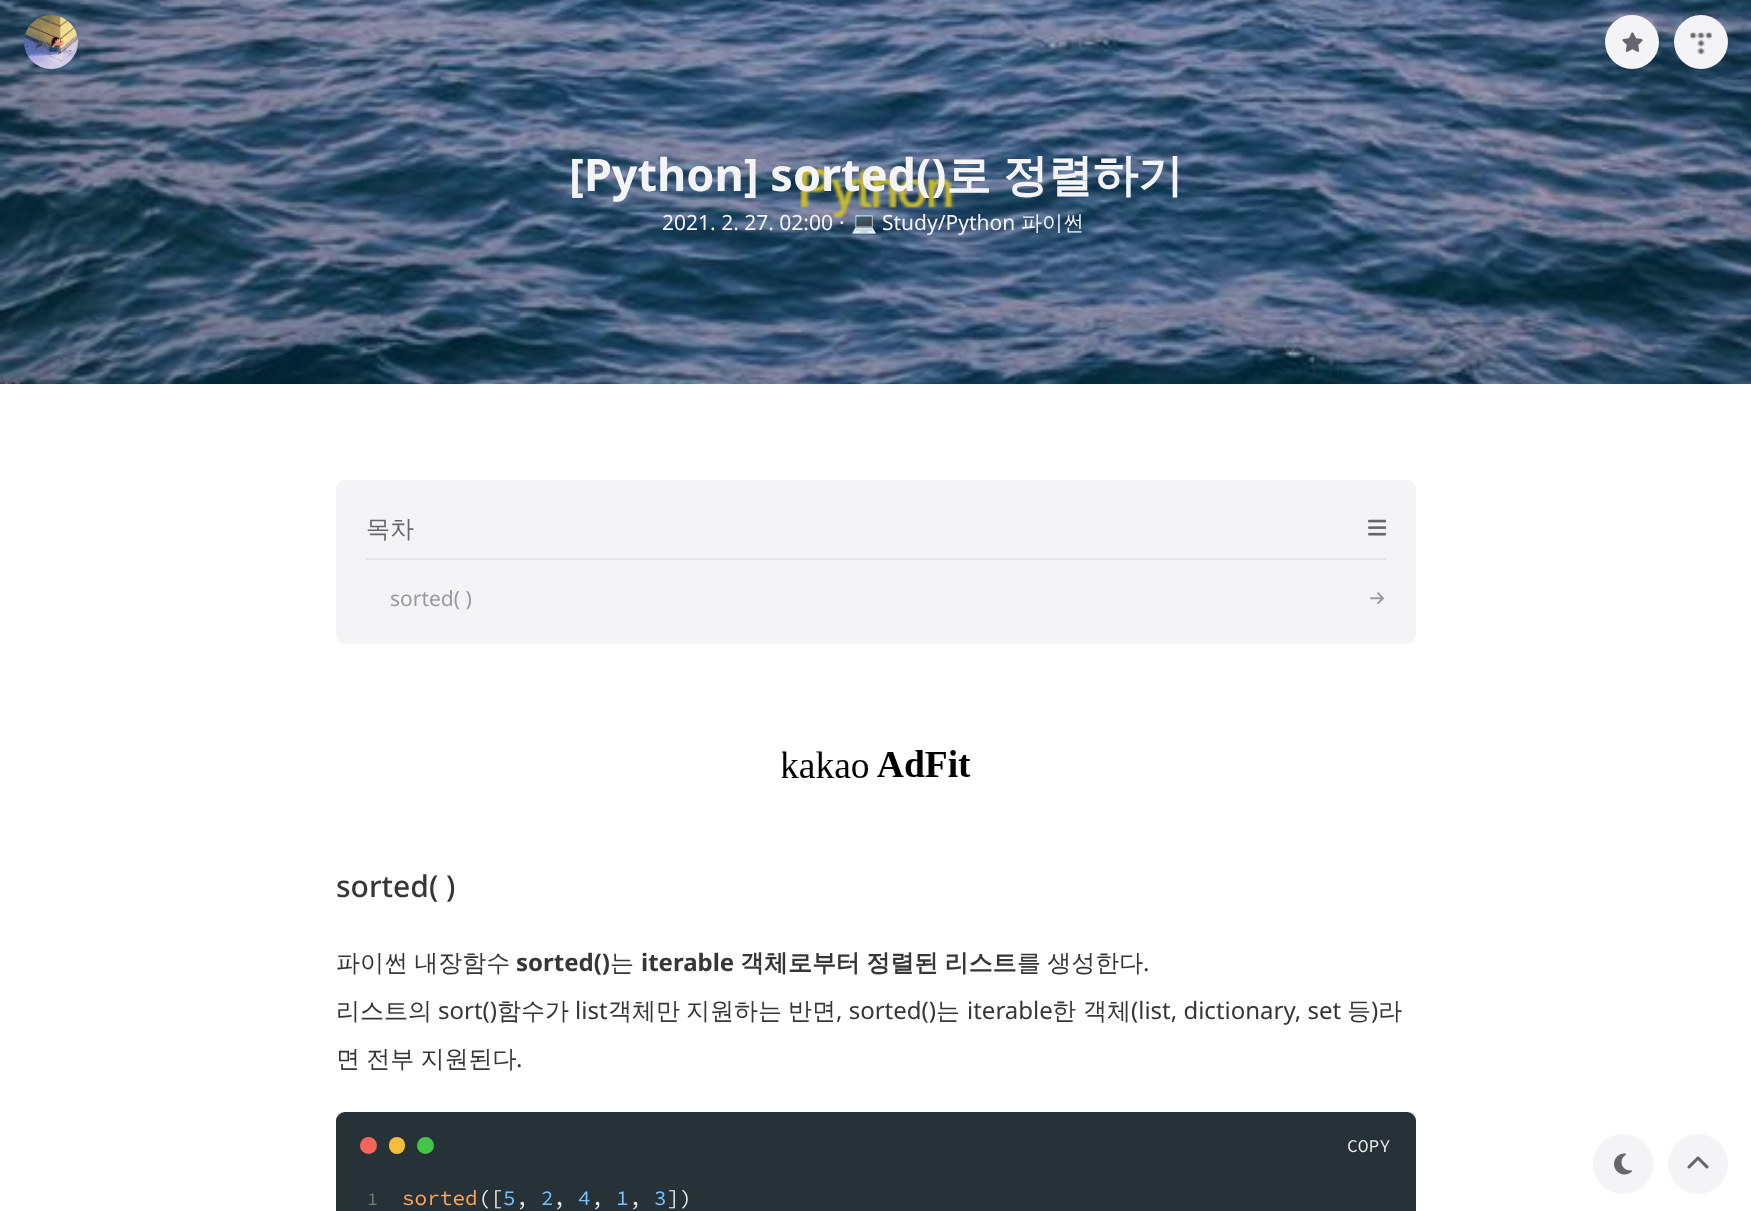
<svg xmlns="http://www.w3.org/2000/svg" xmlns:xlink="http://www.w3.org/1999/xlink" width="1751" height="1211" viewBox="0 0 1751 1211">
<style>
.cls-1{font:bold 45px Noto Sans;fill:#f4f4f6}
.cls-2{font:bold 45px WenQuanYi Zen Hei;fill:#f4f4f6}
.cls-3{font:21px Noto Sans;fill:#f4f4f6}
.cls-4{font:21px Noto Color Emoji;fill:#f4f4f6}
.cls-5{font:500 21px WenQuanYi Zen Hei;fill:#f4f4f6}
.cls-6{font:500 24px WenQuanYi Zen Hei;fill:#66666e}
.cls-7{font:21px Noto Sans;fill:#9999a1}
.cls-8{font:500 30px Noto Sans;fill:#353638}
.cls-9{font:500 24px WenQuanYi Zen Hei;fill:#353638}
.cls-10{font:bold 24px Noto Sans;fill:#353638}
.cls-11{font:bold 24px WenQuanYi Zen Hei;fill:#353638}
.cls-12{font:24px Noto Sans;fill:#353638}
.cls-13{font:200 18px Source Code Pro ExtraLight;fill:#edede9}
.cls-14{font:200 21px Source Code Pro ExtraLight;fill:#ffa657}
.cls-15{font:200 21px Source Code Pro ExtraLight;fill:#edede9}
.cls-16{font:200 18px Source Code Pro ExtraLight;fill:#747a7a}
.cls-17{font:200 21px Source Code Pro ExtraLight;fill:#79c0ff}
</style>
<defs>
<clipPath id="clip1"><rect x="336" y="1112" width="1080" height="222"/></clipPath>
</defs>
<rect width="100%" height="100%" fill="#ffffff"/>
<image xlink:href="image3.png" x="0" y="0" width="1751" height="384"/>
<image xlink:href="image0.png" x="24" y="15" width="54" height="54"/>
<circle fill="#f4f4f6" cx="1632" cy="42" r="27"/>
<image xlink:href="image1.png" x="1622" y="32" width="21" height="20"/>
<circle fill="#f4f4f6" cx="1701" cy="42" r="27"/>
<image xlink:href="image2.png" x="1690" y="32" width="22" height="23"/>
<rect fill="#f4f4f6" x="336" y="480" width="1080" height="164" rx="9"/>
<rect fill="#e6e6e9" x="366" y="558" width="1020" height="2"/>
<image xlink:href="image4.png" x="1368" y="519" width="18" height="17"/>
<image xlink:href="image5.png" x="1370" y="592" width="14" height="12"/>
<image xlink:href="image6.png" x="782" y="750" width="189" height="28"/>
<g clip-path="url(#clip1)">
<rect fill="#000000" fill-opacity="0.4" filter="blur(18px)" x="336" y="1130" width="1080" height="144" rx="9"/>
</g>
<rect fill="#263238" x="336" y="1112" width="1080" height="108" rx="9"/>
<path fill="#263238" d="M348 1112H1404C1410.5 1112 1416 1117.5 1416 1124V1178H336V1124C336 1117.5 341.5 1112 348 1112Z"/>
<circle fill="#f5655b" cx="368.5" cy="1145.5" r="8.5"/>
<rect fill="#f6bd3b" x="389" y="1137" width="16" height="17" rx="8"/>
<circle fill="#43c645" cx="425.5" cy="1145.5" r="8.5"/>
<circle fill="#f4f4f6" cx="1623" cy="1164" r="30"/>
<image xlink:href="image7.png" x="1614" y="1153" width="18" height="22"/>
<circle fill="#f4f4f6" cx="1698" cy="1164" r="30"/>
<image xlink:href="image8.png" x="1687" y="1156" width="22" height="13"/>
<text class="cls-1" x="569" y="191">[Python] sorted()</text>
<text class="cls-2" x="946" y="191">로</text>
<text class="cls-2" x="1003" y="191">정렬하기</text>
<text class="cls-3" x="662" y="230">2021. 2. 27. 02:00</text>
<text class="cls-3" x="839" y="230">·</text>
<text class="cls-4" x="851" y="230">💻</text>
<text class="cls-3" x="882" y="230">Study/Python</text>
<text class="cls-5" x="1021" y="230">파이썬</text>
<text class="cls-6" x="366" y="537">목차</text>
<text class="cls-7" x="390" y="606">sorted( )</text>
<text class="cls-8" x="336" y="897">sorted( )</text>
<text class="cls-9" x="336" y="971" word-spacing="-1">파이썬 내장함수</text>
<text class="cls-10" x="516" y="971">sorted()</text>
<text class="cls-9" x="610" y="971">는</text>
<text class="cls-10" x="641" y="971">iterable</text>
<text class="cls-11" x="740" y="971" word-spacing="-1">객체로부터 정렬된 리스트</text>
<text class="cls-9" x="1017" y="971" word-spacing="-1">를 생성한다</text>
<text class="cls-12" x="1143" y="971">.</text>
<text class="cls-9" x="336" y="1019">리스트의</text>
<text class="cls-12" x="438" y="1019">sort()</text>
<text class="cls-9" x="497" y="1019">함수가</text>
<text class="cls-12" x="575" y="1019">list</text>
<text class="cls-9" x="608" y="1019">객체만</text>
<text class="cls-9" x="686" y="1019">지원하는</text>
<text class="cls-9" x="788" y="1019">반면</text>
<text class="cls-12" x="836" y="1019">, sorted()</text>
<text class="cls-9" x="936" y="1019">는</text>
<text class="cls-12" x="967" y="1019">iterable</text>
<text class="cls-9" x="1052" y="1019">한</text>
<text class="cls-9" x="1083" y="1019">객체</text>
<text class="cls-12" x="1131" y="1019">(list, dictionary, set</text>
<text class="cls-9" x="1347" y="1019">등 라</text>
<text class="cls-12" x="1371" y="1019">)</text>
<text class="cls-9" x="336" y="1067" word-spacing="-1">면 전부 지원된다</text>
<text class="cls-12" x="516" y="1067">.</text>
<text class="cls-13" x="1347" y="1152">COPY</text>
<text class="cls-14" x="402" y="1205">sorted</text>
<text class="cls-15" x="478" y="1205">([ ,</text>
<text class="cls-15" x="667" y="1205">])</text>
<text class="cls-16" x="367" y="1205">1</text>
<text class="cls-17" x="503" y="1205">5</text>
<text class="cls-17" x="541" y="1205">2</text>
<text class="cls-15" x="553" y="1205">,</text>
<text class="cls-17" x="578" y="1205">4</text>
<text class="cls-15" x="591" y="1205">,</text>
<text class="cls-17" x="616" y="1205">1</text>
<text class="cls-15" x="629" y="1205">,</text>
<text class="cls-17" x="654" y="1205">3</text>
</svg>
